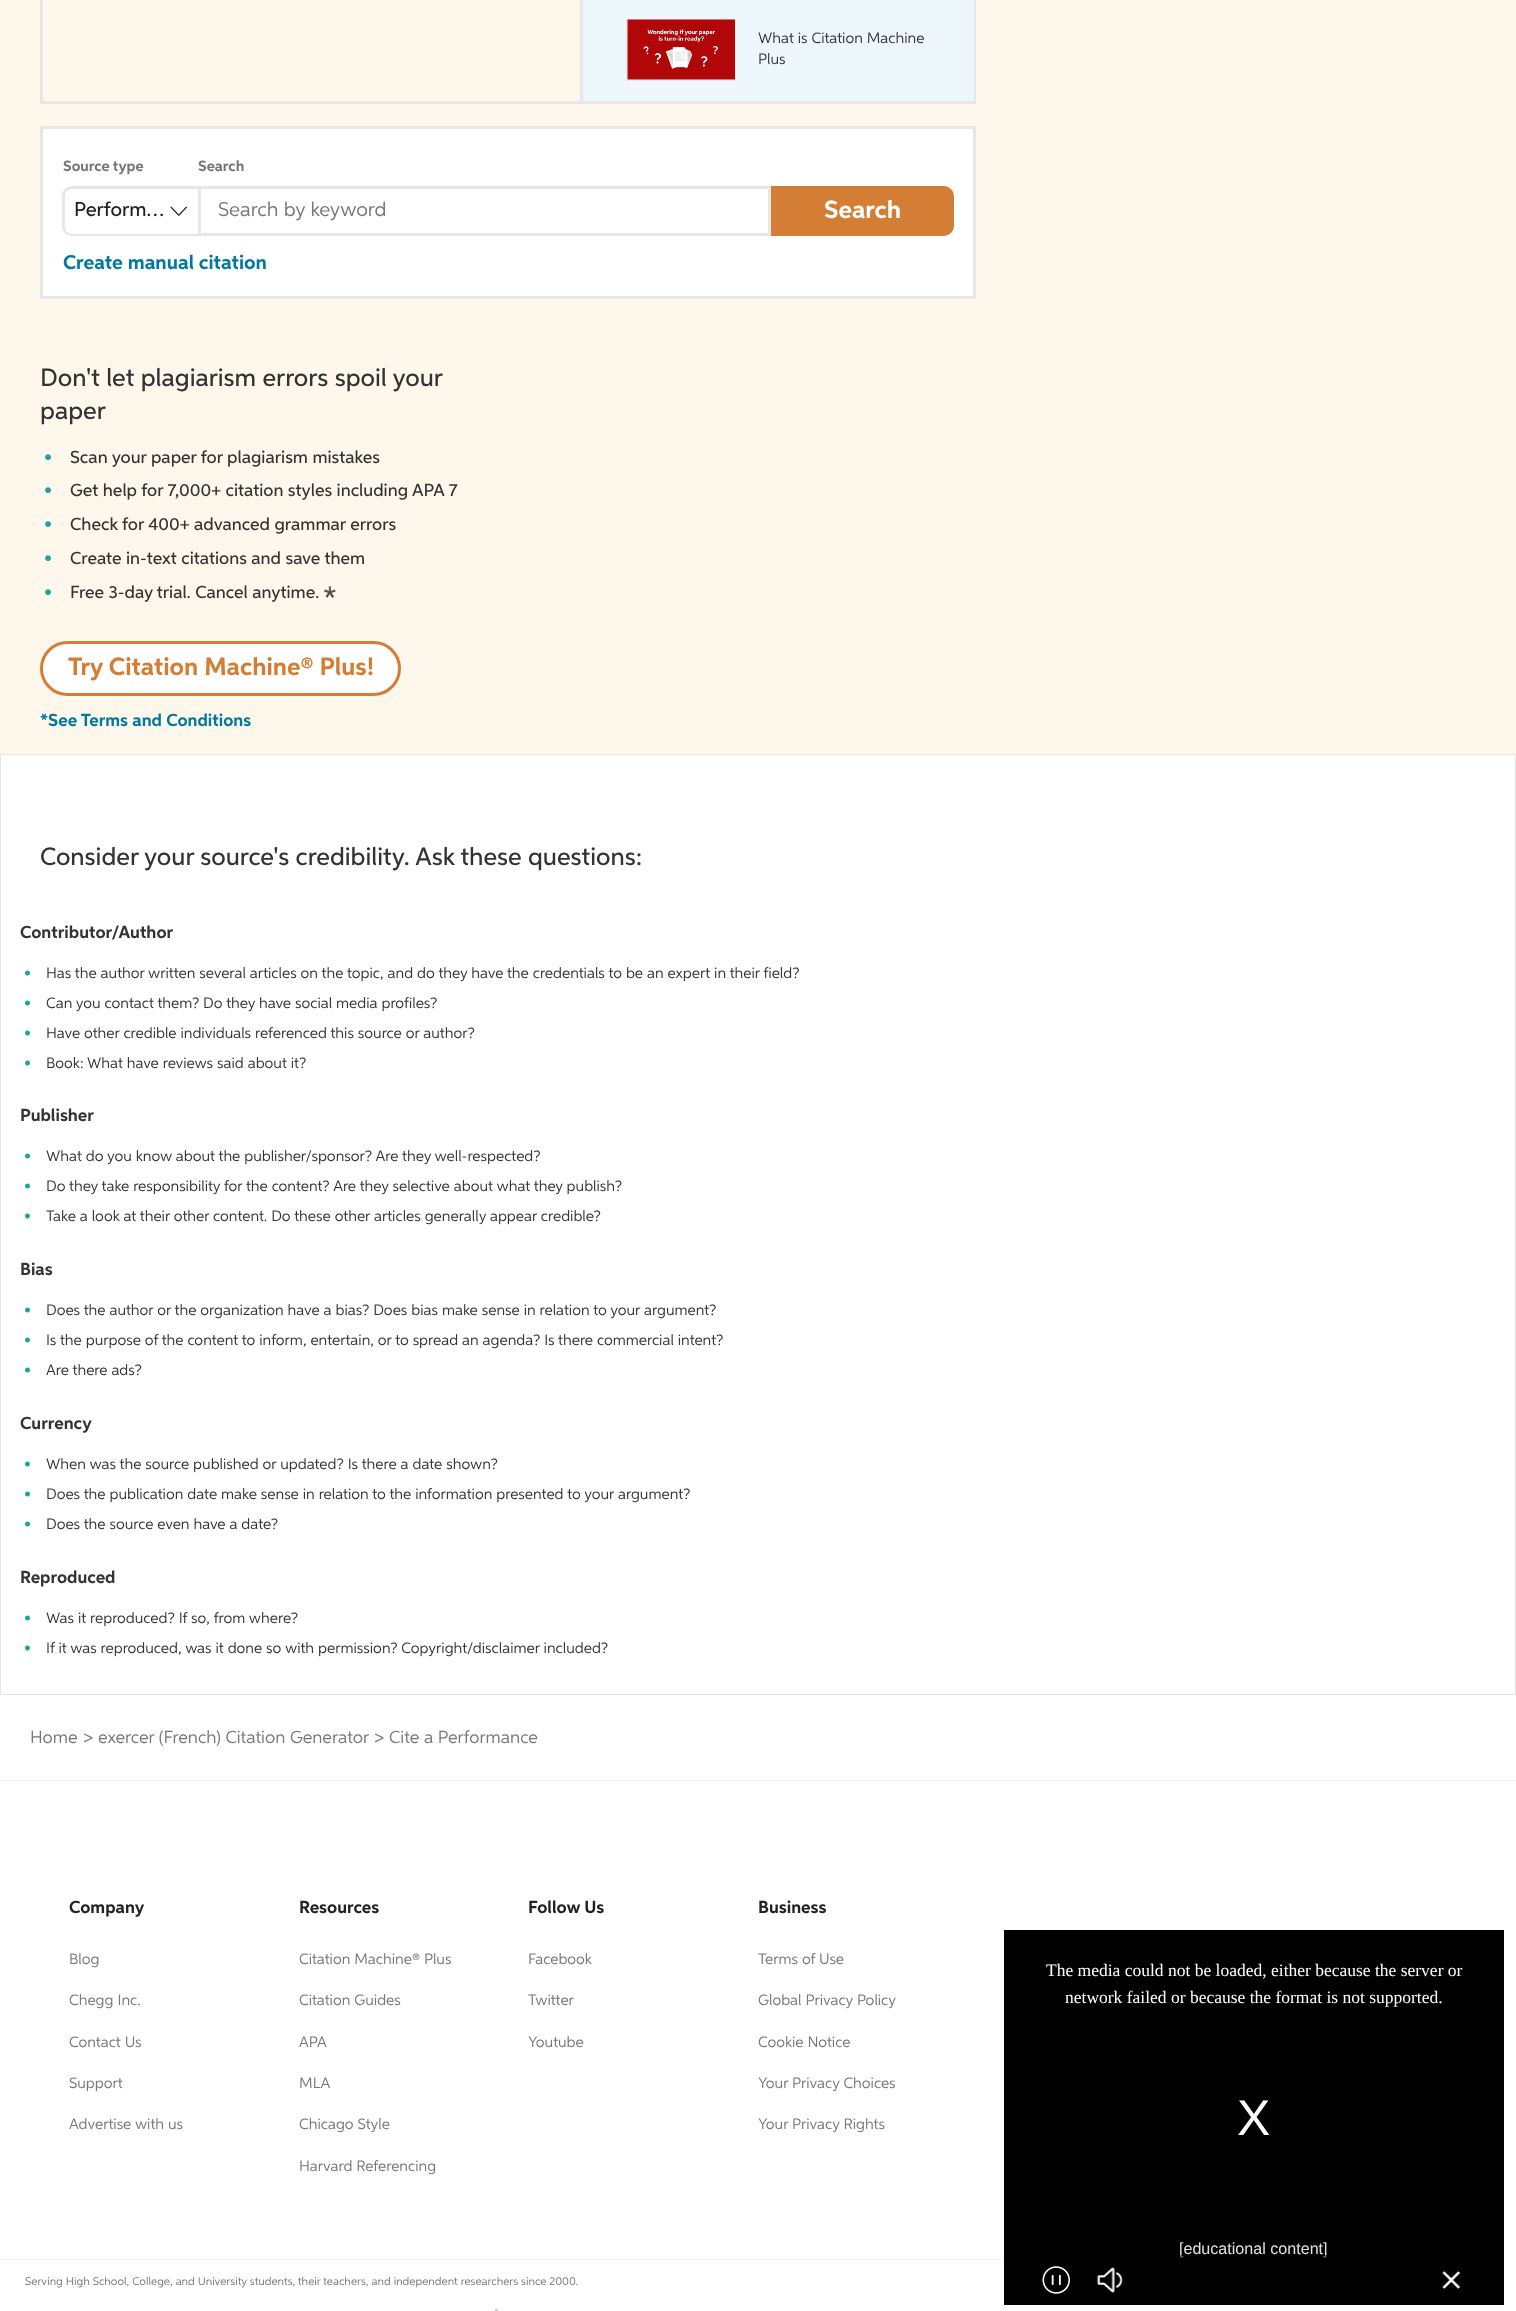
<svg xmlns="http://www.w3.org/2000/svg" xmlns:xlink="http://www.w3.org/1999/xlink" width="1516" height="2311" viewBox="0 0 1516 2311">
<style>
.cls-1{font:15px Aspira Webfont;fill:#767676}
.cls-2{font:20px 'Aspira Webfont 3';fill:#222222}
.cls-3{font:20px 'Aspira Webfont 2';fill:#767676}
.cls-4{font:25px Aspira Webfont;fill:#ffffff}
.cls-5{font:20px Aspira Webfont;fill:#00799e}
.cls-6{font:25px 'Aspira Webfont 3';fill:#333333}
.cls-7{font:17.5px 'Aspira Webfont 3';fill:#21a29d}
.cls-8{font:17.5px 'Aspira Webfont 3';fill:#333333}
.cls-9{font:17.5px Noto Color Emoji;fill:#333333}
.cls-10{font:25px Aspira Webfont;fill:#d47d35}
.cls-11{font:17.5px Aspira Webfont;fill:#00799e}
.cls-12{font:17.5px Aspira Webfont;fill:#333333}
.cls-13{font:15px 'Aspira Webfont 2';fill:#21a29d}
.cls-14{font:15px 'Aspira Webfont 2';fill:#333333}
.cls-15{font:17.5px 'Aspira Webfont 2';fill:#767676}
.cls-16{font:17.5px Liberation Serif;fill:#ffffff}
.cls-17{font:50px Liberation Sans;fill:#ffffff}
.cls-18{font:16.1px Liberation Sans;fill:#ffffff}
.cls-19{font:17.5px Aspira Webfont;fill:#222222}
.cls-20{font:15px 'Aspira Webfont 2';fill:#767676}
.cls-21{font:11.25px 'Aspira Webfont 2';fill:#767676}
</style>
<defs>
<linearGradient id="g1" gradientUnits="userSpaceOnUse" x1="1254" y1="1930" x2="1254" y2="2305"><stop offset="0" stop-color="#000000" stop-opacity="0.8"/><stop offset="1" stop-color="#000000" stop-opacity="0"/></linearGradient>
</defs>
<rect width="100%" height="100%" fill="#ffffff"/>
<rect fill="#fef7ec" x="0" y="0" width="1516" height="754"/>
<rect fill="#ffffff" stroke="#e7e7e7" stroke-width="3" x="41.5" y="127.5" width="933" height="170"/>
<path fill="#e7e7e7" fill-rule="evenodd" d="M72 186H198V236H72C67 236 62 232 62 226V196C62 191 67 186 72 186ZM72 189H198V234H72C68 234 65 230 65 226V196C65 192 68 189 72 189Z"/>
<image xlink:href="image0.png" x="170" y="206" width="17" height="10"/>
<rect fill="none" stroke="#e7e7e7" stroke-width="3" x="199.5" y="187.5" width="570" height="47"/>
<path fill="#d47d35" stroke="#d47d35" stroke-width="3" d="M772.5 187.5H944C948.5 187.5 952.5 191.5 952.5 196V226C952.5 230.5 948.5 234.5 944 234.5H772.5Z"/>
<rect fill="#ffffff" stroke="#d47d35" stroke-width="3" x="41.5" y="642.5" width="358" height="52" rx="26"/>
<rect fill="none" stroke="#e5e5e5" x="0.5" y="754.5" width="1515" height="940"/>
<rect fill="none" stroke="#e7e7e7" stroke-width="3" x="41.5" y="-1.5" width="933" height="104"/>
<rect fill="#e7e7e7" x="580" y="0" width="3" height="101"/>
<rect fill="#eef8fc" x="583" y="0" width="391" height="101"/>
<rect fill="none" stroke="#e7e7e7" x="626.5" y="19.5" width="109" height="61"/>
<image xlink:href="image1.png" x="627" y="19" width="108" height="61"/>
<rect fill="#000000" x="1004" y="1930" width="500" height="375"/>
<image xlink:href="image2.png" x="1042" y="2266" width="28" height="28"/>
<image xlink:href="image3.png" x="1096" y="2267" width="27" height="26"/>
<image xlink:href="image4.png" x="1442" y="2271" width="19" height="18"/>
<rect fill="#f4f4f4" x="0" y="1780" width="1516" height="1"/>
<rect fill="#f4f4f4" x="0" y="2259" width="1004" height="1"/>
<rect fill="#cccccc" x="495" y="2309" width="3" height="2"/>
<text class="cls-1" x="63" y="171">Source type</text>
<text class="cls-2" x="74" y="216">Perform…</text>
<text class="cls-1" x="198" y="171">Search</text>
<text class="cls-3" x="218" y="216">Search by keyword</text>
<text class="cls-4" x="824" y="218">Search</text>
<text class="cls-5" x="63" y="269">Create manual citation</text>
<text class="cls-6"><tspan x="40" y="386">Don't let plagiarism errors spoil your</tspan><tspan x="40" y="419">paper</tspan></text>
<text class="cls-7" x="44" y="463">•</text>
<text class="cls-8" x="70" y="463">Scan your paper for plagiarism mistakes</text>
<text class="cls-7" x="44" y="496">•</text>
<text class="cls-8" x="70" y="496">Get help for 7,000+ citation styles including APA 7</text>
<text class="cls-7" x="44" y="530">•</text>
<text class="cls-8" x="70" y="530">Check for 400+ advanced grammar errors</text>
<text class="cls-7" x="44" y="564">•</text>
<text class="cls-8" x="70" y="564">Create in-text citations and save them</text>
<text class="cls-7" x="44" y="598">•</text>
<text class="cls-8" x="70" y="598">Free 3-day trial. Cancel anytime.</text>
<text class="cls-9" x="319" y="598">*️</text>
<text class="cls-10" x="68" y="675">Try Citation Machine® Plus!</text>
<text class="cls-11" x="40" y="726">*See Terms and Conditions</text>
<text class="cls-6" x="40" y="865">Consider your source's credibility. Ask these questions:</text>
<text class="cls-12" x="20" y="938">Contributor/Author</text>
<text class="cls-13" x="24" y="978">•</text>
<text class="cls-14" x="46" y="978">Has the author written several articles on the topic, and do they have the credentials to be an expert in their field?</text>
<text class="cls-13" x="24" y="1008">•</text>
<text class="cls-14" x="46" y="1008">Can you contact them? Do they have social media profiles?</text>
<text class="cls-13" x="24" y="1038">•</text>
<text class="cls-14" x="46" y="1038">Have other credible individuals referenced this source or author?</text>
<text class="cls-13" x="24" y="1068">•</text>
<text class="cls-14" x="46" y="1068">Book: What have reviews said about it?</text>
<text class="cls-12" x="20" y="1121">Publisher</text>
<text class="cls-13" x="24" y="1161">•</text>
<text class="cls-14" x="46" y="1161">What do you know about the publisher/sponsor? Are they well-respected?</text>
<text class="cls-13" x="24" y="1191">•</text>
<text class="cls-14" x="46" y="1191">Do they take responsibility for the content? Are they selective about what they publish?</text>
<text class="cls-13" x="24" y="1221">•</text>
<text class="cls-14" x="46" y="1221">Take a look at their other content. Do these other articles generally appear credible?</text>
<text class="cls-12" x="20" y="1275">Bias</text>
<text class="cls-13" x="24" y="1315">•</text>
<text class="cls-14" x="46" y="1315">Does the author or the organization have a bias? Does bias make sense in relation to your argument?</text>
<text class="cls-13" x="24" y="1345">•</text>
<text class="cls-14" x="46" y="1345">Is the purpose of the content to inform, entertain, or to spread an agenda? Is there commercial intent?</text>
<text class="cls-13" x="24" y="1375">•</text>
<text class="cls-14" x="46" y="1375">Are there ads?</text>
<text class="cls-12" x="20" y="1429">Currency</text>
<text class="cls-13" x="24" y="1469">•</text>
<text class="cls-14" x="46" y="1469">When was the source published or updated? Is there a date shown?</text>
<text class="cls-13" x="24" y="1499">•</text>
<text class="cls-14" x="46" y="1499">Does the publication date make sense in relation to the information presented to your argument?</text>
<text class="cls-13" x="24" y="1529">•</text>
<text class="cls-14" x="46" y="1529">Does the source even have a date?</text>
<text class="cls-12" x="20" y="1583">Reproduced</text>
<text class="cls-13" x="24" y="1623">•</text>
<text class="cls-14" x="46" y="1623">Was it reproduced? If so, from where?</text>
<text class="cls-13" x="24" y="1653">•</text>
<text class="cls-14" x="46" y="1653">If it was reproduced, was it done so with permission? Copyright/disclaimer included?</text>
<text class="cls-15" x="30" y="1743">Home</text>
<text class="cls-15" x="83" y="1743">&gt;</text>
<text class="cls-15" x="98" y="1743">exercer (French) Citation Generator</text>
<text class="cls-15" x="374" y="1743">&gt;</text>
<text class="cls-15" x="389" y="1743">Cite a Performance</text>
<text class="cls-14"><tspan x="758" y="43">What is Citation Machine</tspan><tspan x="758" y="64">Plus</tspan></text>
<text class="cls-16" x="1046" y="1976">The media could not be loaded, either because the server or</text>
<text class="cls-16" x="1065" y="2003">network failed or because the format is not supported.</text>
<text class="cls-17" x="1237" y="2135">X</text>
<text class="cls-18" x="1179" y="2254">[educational content]</text>
<rect fill="url(#g1)" x="1180" y="2242" width="147" height="16"/>
<rect fill="#000000" fill-opacity="0.5" x="1180" y="2255" width="148" height="3"/>
<text class="cls-19" x="69" y="1913">Company</text>
<text class="cls-20" x="69" y="1964">Blog</text>
<text class="cls-20" x="69" y="2005">Chegg Inc.</text>
<text class="cls-20" x="69" y="2047">Contact Us</text>
<text class="cls-20" x="69" y="2088">Support</text>
<text class="cls-20" x="69" y="2129">Advertise with us</text>
<text class="cls-19" x="299" y="1913">Resources</text>
<text class="cls-20" x="299" y="1964">Citation Machine® Plus</text>
<text class="cls-20" x="299" y="2005">Citation Guides</text>
<text class="cls-20" x="299" y="2047">APA</text>
<text class="cls-20" x="299" y="2088">MLA</text>
<text class="cls-20" x="299" y="2129">Chicago Style</text>
<text class="cls-20" x="299" y="2171">Harvard Referencing</text>
<text class="cls-19" x="528" y="1913">Follow Us</text>
<text class="cls-20" x="528" y="1964">Facebook</text>
<text class="cls-20" x="528" y="2005">Twitter</text>
<text class="cls-20" x="528" y="2047">Youtube</text>
<text class="cls-19" x="758" y="1913">Business</text>
<text class="cls-20" x="758" y="1964">Terms of Use</text>
<text class="cls-20" x="758" y="2005">Global Privacy Policy</text>
<text class="cls-20" x="758" y="2047">Cookie Notice</text>
<text class="cls-20" x="758" y="2088">Your Privacy Choices</text>
<text class="cls-20" x="758" y="2129">Your Privacy Rights</text>
<text class="cls-21" x="25" y="2285">Serving High School, College, and University students, their teachers, and independent researchers since 2000.</text>
</svg>
